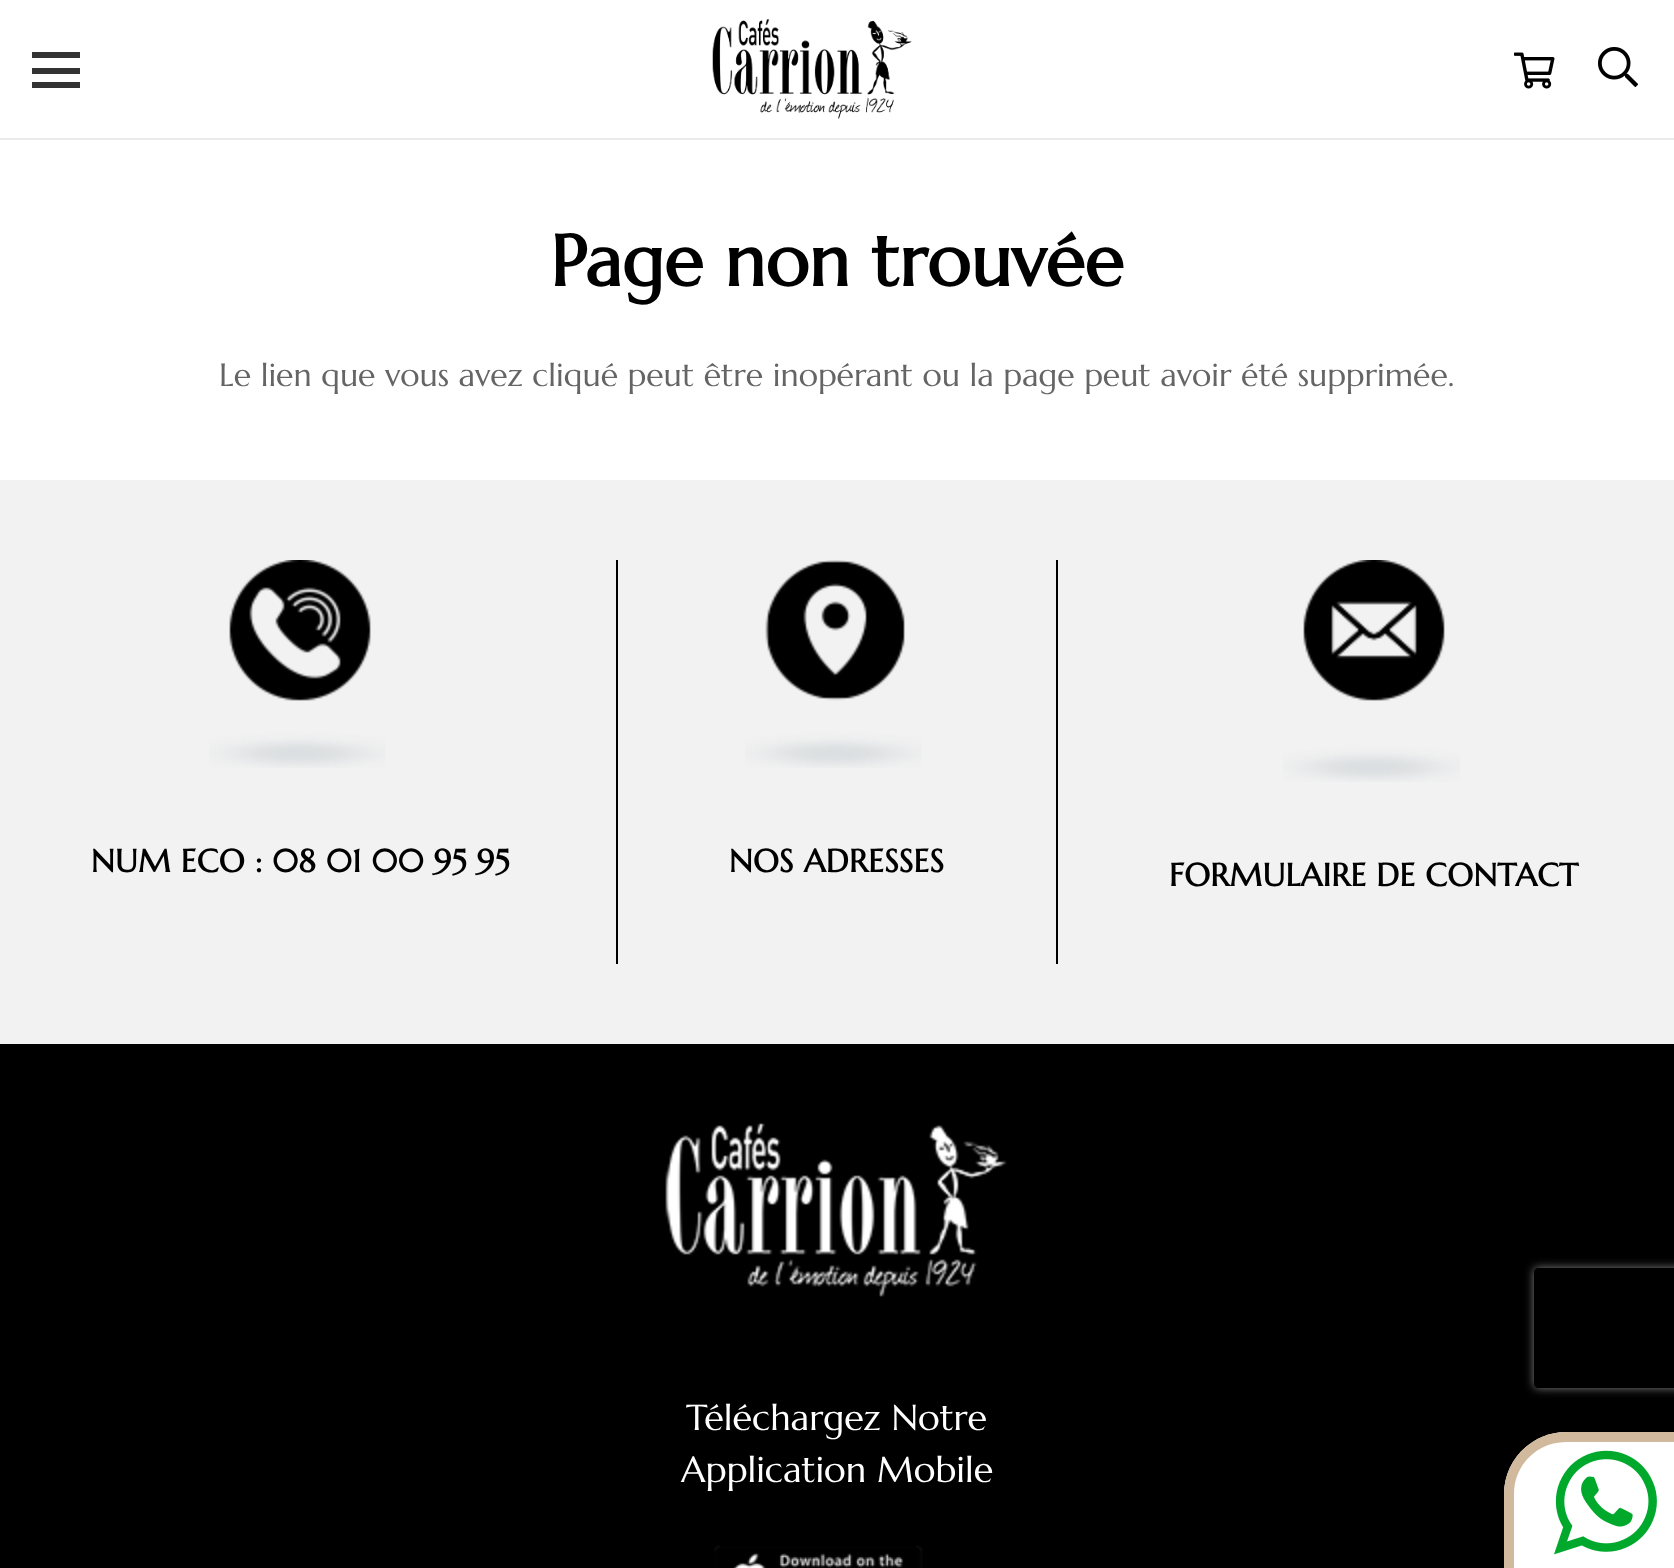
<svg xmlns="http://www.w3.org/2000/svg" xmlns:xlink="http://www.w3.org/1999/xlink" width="1674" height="1568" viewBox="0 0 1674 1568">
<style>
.cls-1{font:bold 72px Marcellus;fill:#000000}
.cls-2{font:32px Marcellus;fill:#656565}
.cls-3{font:bold 32px Marcellus;letter-spacing:0.3px;fill:#000000}
.cls-4{font:36px Marcellus;fill:#ffffff}
</style>
<defs>
<clipPath id="clip1"><path d="M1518 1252H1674V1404H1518ZM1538 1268H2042C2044 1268 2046 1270 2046 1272V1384C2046 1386 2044 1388 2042 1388H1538C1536 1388 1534 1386 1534 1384V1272C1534 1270 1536 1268 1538 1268Z" clip-rule="evenodd"/></clipPath>
</defs>
<rect width="100%" height="100%" fill="#ffffff"/>
<rect fill="#ebebeb" x="0" y="138" width="1674" height="2"/>
<rect fill="#333333" x="32" y="68" width="48" height="6"/>
<rect fill="#333333" x="32" y="52" width="48" height="6"/>
<rect fill="#333333" x="32" y="82" width="48" height="6"/>
<image xlink:href="image0.png" x="712" y="19" width="200" height="100"/>
<image xlink:href="image1.png" x="1514" y="52" width="41" height="37"/>
<image xlink:href="image2.png" x="1598" y="47" width="40" height="40"/>
<rect fill="#f2f2f2" x="0" y="480" width="1674" height="564"/>
<image xlink:href="image3.png" x="209" y="560" width="177" height="208"/>
<rect fill="#000000" x="1056" y="560" width="2" height="404"/>
<rect fill="#000000" x="616" y="560" width="2" height="404"/>
<image xlink:href="image4.png" x="745" y="560" width="177" height="208"/>
<image xlink:href="image5.png" x="1283" y="560" width="177" height="222"/>
<rect fill="#000000" x="0" y="1044" width="1674" height="524"/>
<image xlink:href="image6.png" x="665" y="1123" width="342" height="174"/>
<image xlink:href="image7.png" x="714" y="1545" width="209" height="23"/>
<path fill="#ffffff" d="M1566 1432H1674V1568H1504V1494C1504 1460 1532 1432 1566 1432Z"/>
<path fill="#d1b99d" fill-rule="evenodd" d="M1566 1432H1674V1568H1504V1494C1504 1460 1532 1432 1566 1432ZM1566 1442H1674V1568H1514V1494C1514 1465 1537 1442 1566 1442Z"/>
<image xlink:href="image8.png" x="1554" y="1450" width="103" height="105"/>
<g clip-path="url(#clip1)">
<rect fill="#808080" filter="blur(5px)" x="1534" y="1268" width="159" height="120" rx="4"/>
</g>
<text class="cls-1" x="550" y="286">Page non trouvée</text>
<text class="cls-2" x="219" y="386">Le lien que vous avez cliqué peut être inopérant ou la page peut avoir été supprimée.</text>
<text class="cls-3" x="91" y="872">NUM ECO : 08 01 00 95 95</text>
<text class="cls-3" x="729" y="872">NOS ADRESSES</text>
<text class="cls-3" x="1169" y="886">FORMULAIRE DE CONTACT</text>
<text class="cls-4" x="686" y="1430">Téléchargez Notre</text>
<text class="cls-4" x="681" y="1482">Application Mobile</text>
</svg>
